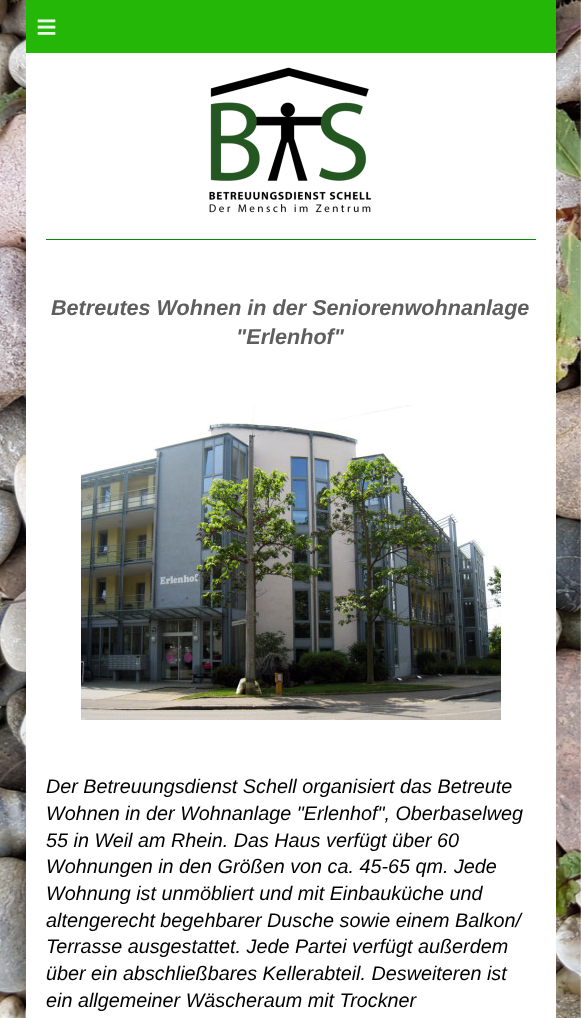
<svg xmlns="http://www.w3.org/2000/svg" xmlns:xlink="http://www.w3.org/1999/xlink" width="581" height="1018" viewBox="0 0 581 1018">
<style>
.cls-1{font:36px Liberation Sans;letter-spacing:10px;fill:#e9f8e6}
.cls-2{font:italic bold 21.6px Liberation Sans;fill:#5e5e5e}
.cls-3{font:italic 19.8px Liberation Sans;fill:#000000}
</style>
<rect width="100%" height="100%" fill="#ffffff"/>
<image xlink:href="image0.png" x="0" y="0" width="581" height="1018"/>
<rect fill="#24b708" x="26" y="0" width="530" height="53"/>
<rect fill="#ffffff" x="26" y="53" width="530" height="965"/>
<image xlink:href="image1.png" x="209" y="67" width="163" height="146"/>
<rect fill="#028c03" x="46" y="239" width="490" height="1"/>
<image xlink:href="image2.png" x="81" y="405" width="420" height="315"/>
<text class="cls-1" x="36" y="39">≡</text>
<text class="cls-2" x="51" y="315">Betreutes Wohnen in der Seniorenwohnanlage</text>
<text class="cls-2" x="236" y="344">"Erlenhof"</text>
<text class="cls-3"><tspan x="46" y="793">Der Betreuungsdienst Schell organisiert das Betreute</tspan><tspan x="46" y="820">Wohnen in der Wohnanlage "Erlenhof", Oberbaselweg</tspan><tspan x="46" y="847">55 in Weil am Rhein. Das Haus verfügt über 60</tspan><tspan x="46" y="873">Wohnungen in den Größen von ca. 45-65 qm. Jede</tspan><tspan x="46" y="900">Wohnung ist unmöbliert und mit Einbauküche und</tspan><tspan x="46" y="927">altengerecht begehbarer Dusche sowie einem Balkon/</tspan><tspan x="46" y="953">Terrasse ausgestattet. Jede Partei verfügt außerdem</tspan><tspan x="46" y="980">über ein abschließbares Kellerabteil. Desweiteren ist</tspan><tspan x="46" y="1007">ein allgemeiner Wäscheraum mit Trockner</tspan></text>
</svg>
